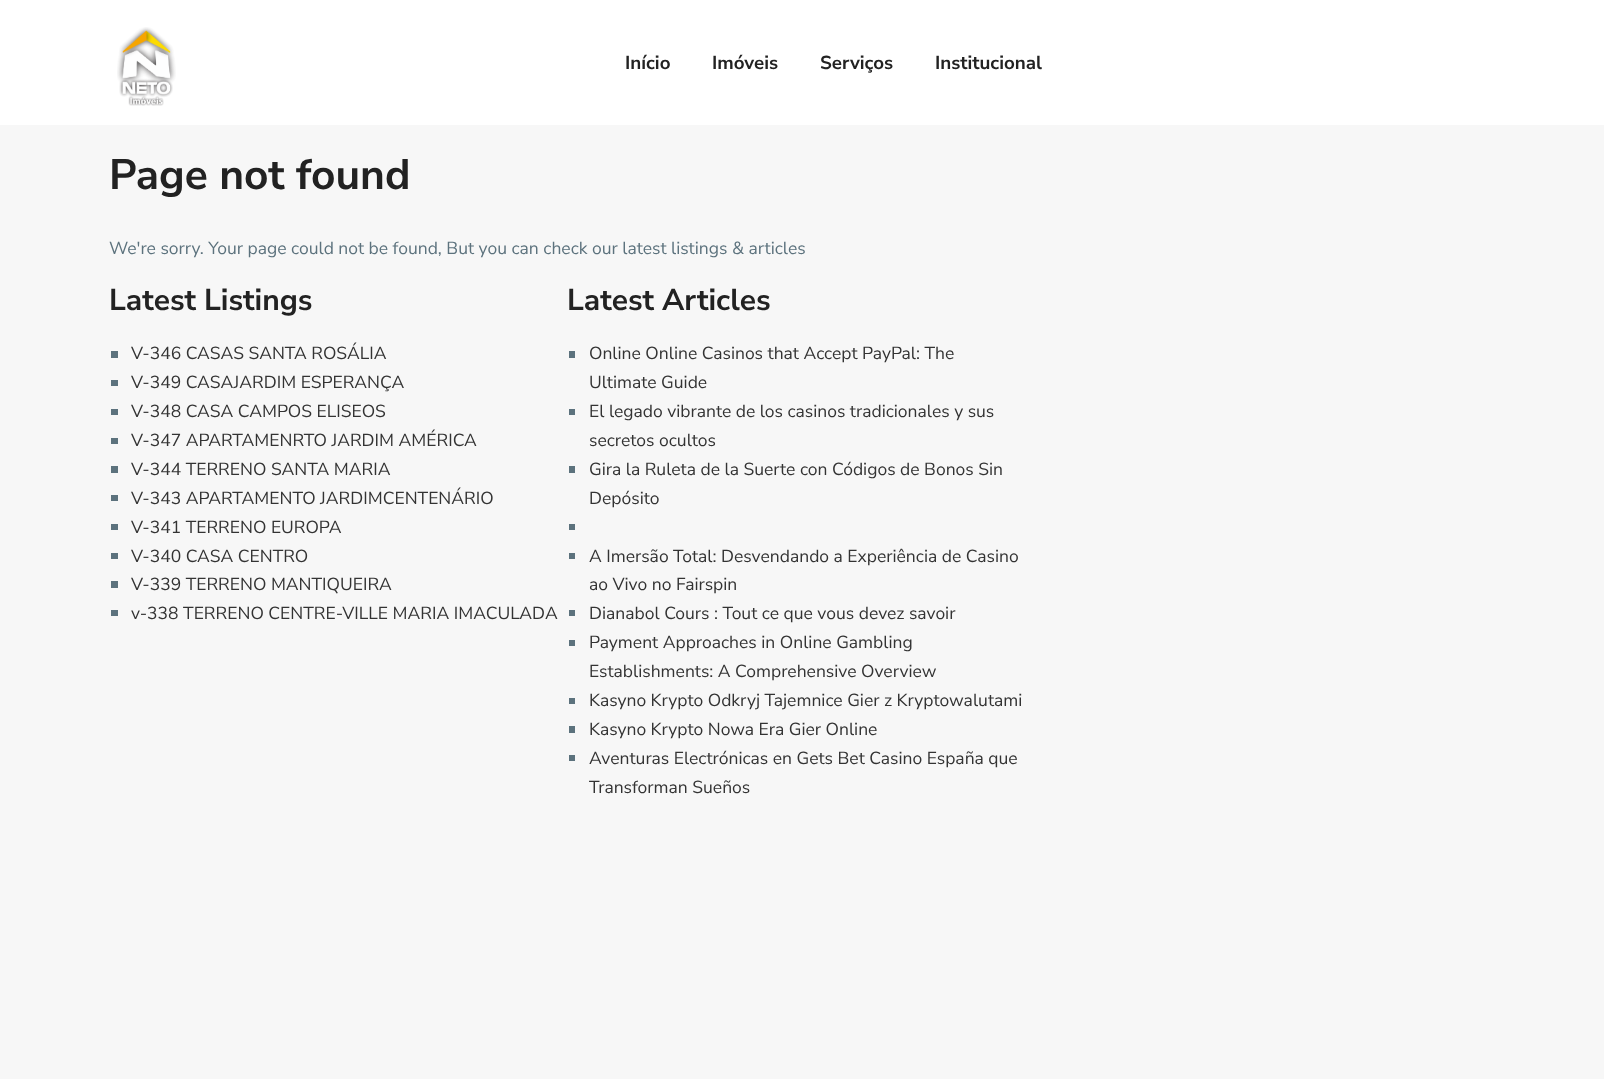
<svg xmlns="http://www.w3.org/2000/svg" xmlns:xlink="http://www.w3.org/1999/xlink" width="1604" height="1079" viewBox="0 0 1604 1079">
<style>
.cls-1{font:bold 18.75px Nunito Sans;fill:#222222}
.cls-2{font:bold 42.5px Nunito Sans;fill:#222222}
.cls-3{font:17.5px Nunito Sans;fill:#5c727d}
.cls-4{font:bold 30px Nunito Sans;fill:#222222}
.cls-5{font:17.5px Nunito Sans;fill:#333333}
</style>
<rect width="100%" height="100%" fill="#f7f7f7"/>
<rect fill="#ffffff" x="0" y="0" width="1604" height="125"/>
<image xlink:href="image0.png" x="117" y="27" width="59" height="79"/>
<rect fill="#5c727d" x="111" y="351" width="7" height="7"/>
<rect fill="#5c727d" x="111" y="380" width="7" height="6"/>
<rect fill="#5c727d" x="111" y="409" width="7" height="6"/>
<rect fill="#5c727d" x="111" y="438" width="7" height="6"/>
<rect fill="#5c727d" x="111" y="466" width="7" height="7"/>
<rect fill="#5c727d" x="111" y="495" width="7" height="6"/>
<rect fill="#5c727d" x="111" y="524" width="7" height="6"/>
<rect fill="#5c727d" x="111" y="553" width="7" height="6"/>
<rect fill="#5c727d" x="111" y="581" width="7" height="7"/>
<rect fill="#5c727d" x="111" y="610" width="7" height="6"/>
<rect fill="#5c727d" x="569" y="351" width="6" height="7"/>
<rect fill="#5c727d" x="569" y="409" width="6" height="6"/>
<rect fill="#5c727d" x="569" y="466" width="6" height="7"/>
<rect fill="#5c727d" x="569" y="524" width="6" height="6"/>
<rect fill="#5c727d" x="569" y="553" width="6" height="6"/>
<rect fill="#5c727d" x="569" y="610" width="6" height="6"/>
<rect fill="#5c727d" x="569" y="640" width="6" height="6"/>
<rect fill="#5c727d" x="569" y="698" width="6" height="6"/>
<rect fill="#5c727d" x="569" y="726" width="6" height="7"/>
<rect fill="#5c727d" x="569" y="755" width="6" height="6"/>
<text class="cls-1" x="625" y="69">Início</text>
<text class="cls-1" x="712" y="69">Imóveis</text>
<text class="cls-1" x="820" y="69">Serviços</text>
<text class="cls-1" x="935" y="69">Institucional</text>
<text class="cls-2" x="109" y="189">Page not found</text>
<text class="cls-3" x="109" y="254">We're sorry. Your page could not be found, But you can check our latest listings &amp; articles</text>
<text class="cls-4" x="109" y="310">Latest Listings</text>
<text class="cls-5"><tspan x="131" y="359">V-346 CASAS SANTA ROSÁLIA</tspan><tspan x="131" y="388">V-349 CASAJARDIM ESPERANÇA</tspan><tspan x="131" y="417">V-348 CASA CAMPOS ELISEOS</tspan><tspan x="131" y="446">V-347 APARTAMENRTO JARDIM AMÉRICA</tspan><tspan x="131" y="475">V-344 TERRENO SANTA MARIA</tspan><tspan x="131" y="504">V-343 APARTAMENTO JARDIMCENTENÁRIO</tspan><tspan x="131" y="533">V-341 TERRENO EUROPA</tspan><tspan x="131" y="562">V-340 CASA CENTRO</tspan><tspan x="131" y="590">V-339 TERRENO MANTIQUEIRA</tspan><tspan x="131" y="619">v-338 TERRENO CENTRE-VILLE MARIA IMACULADA</tspan></text>
<text class="cls-4" x="567" y="310">Latest Articles</text>
<text class="cls-5"><tspan x="589" y="359">Online Online Casinos that Accept PayPal: The</tspan><tspan x="589" y="388">Ultimate Guide</tspan><tspan x="589" y="417">El legado vibrante de los casinos tradicionales y sus</tspan><tspan x="589" y="446">secretos ocultos</tspan><tspan x="589" y="475">Gira la Ruleta de la Suerte con Códigos de Bonos Sin</tspan><tspan x="589" y="504">Depósito</tspan></text>
<text class="cls-5"><tspan x="589" y="562">A Imersão Total: Desvendando a Experiência de Casino</tspan><tspan x="589" y="590">ao Vivo no Fairspin</tspan><tspan x="589" y="619">Dianabol Cours : Tout ce que vous devez savoir</tspan><tspan x="589" y="648">Payment Approaches in Online Gambling</tspan><tspan x="589" y="677">Establishments: A Comprehensive Overview</tspan><tspan x="589" y="706">Kasyno Krypto Odkryj Tajemnice Gier z Kryptowalutami</tspan><tspan x="589" y="735">Kasyno Krypto Nowa Era Gier Online</tspan><tspan x="589" y="764">Aventuras Electrónicas en Gets Bet Casino España que</tspan><tspan x="589" y="793">Transforman Sueños</tspan></text>
</svg>
